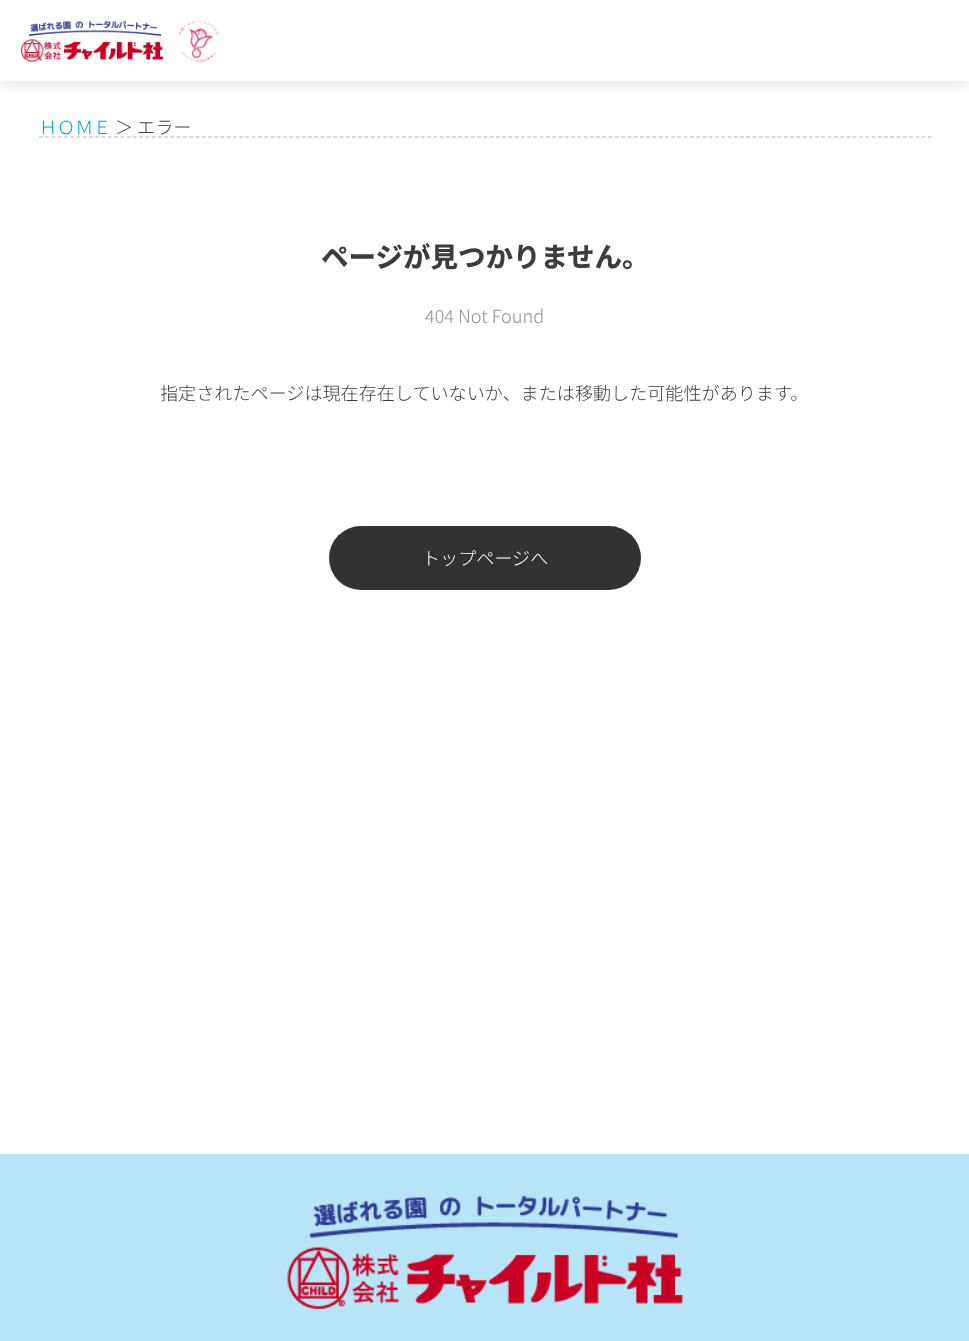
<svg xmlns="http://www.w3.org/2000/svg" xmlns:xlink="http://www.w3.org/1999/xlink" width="969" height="1341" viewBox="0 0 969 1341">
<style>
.cls-1{font:300 18.1px Noto Sans JP;fill:#00a0e9}
.cls-2{font:300 18.1px Noto Sans JP;fill:#3c3c3c}
.cls-3{font:800 27.5px Noto Sans JP;fill:#3c3c3c}
.cls-4{font:300 18.1px Noto Sans JP;fill:#919191}
.cls-5{font:300 18.1px Noto Sans JP;fill:#ffffff}
</style>
<defs>
<clipPath id="clip1"><rect x="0" y="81" width="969" height="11"/></clipPath>
</defs>
<rect width="100%" height="100%" fill="#ffffff"/>
<g clip-path="url(#clip1)">
<rect fill="#000000" fill-opacity="0.15" filter="blur(9.5px)" x="0" y="0" width="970" height="81"/>
</g>
<image xlink:href="image0.png" x="21" y="20" width="142" height="42"/>
<image xlink:href="image1.png" x="178" y="20" width="42" height="43"/>
<path fill="none" stroke="#9fb7d4" stroke-width="1.2" stroke-dasharray="3.75 2.51" d="M39 137H931"/>
<rect fill="#323232" x="329" y="526" width="312" height="64" rx="32"/>
<rect fill="#b7e5f7" x="0" y="1154" width="969" height="187"/>
<image xlink:href="image2.png" x="287" y="1196" width="396" height="113"/>
<text class="cls-1" x="39" y="134">ＨＯＭＥ</text>
<text class="cls-2" x="115" y="134">＞ エラー</text>
<text class="cls-3" x="321" y="267">ページが見つかりません。</text>
<text class="cls-4" x="425" y="323">404 Not Found</text>
<text class="cls-2" x="160" y="400">指定されたページは現在存在していないか、または移動した可能性があります。</text>
<text class="cls-5" x="422" y="565">トップページへ</text>
</svg>
